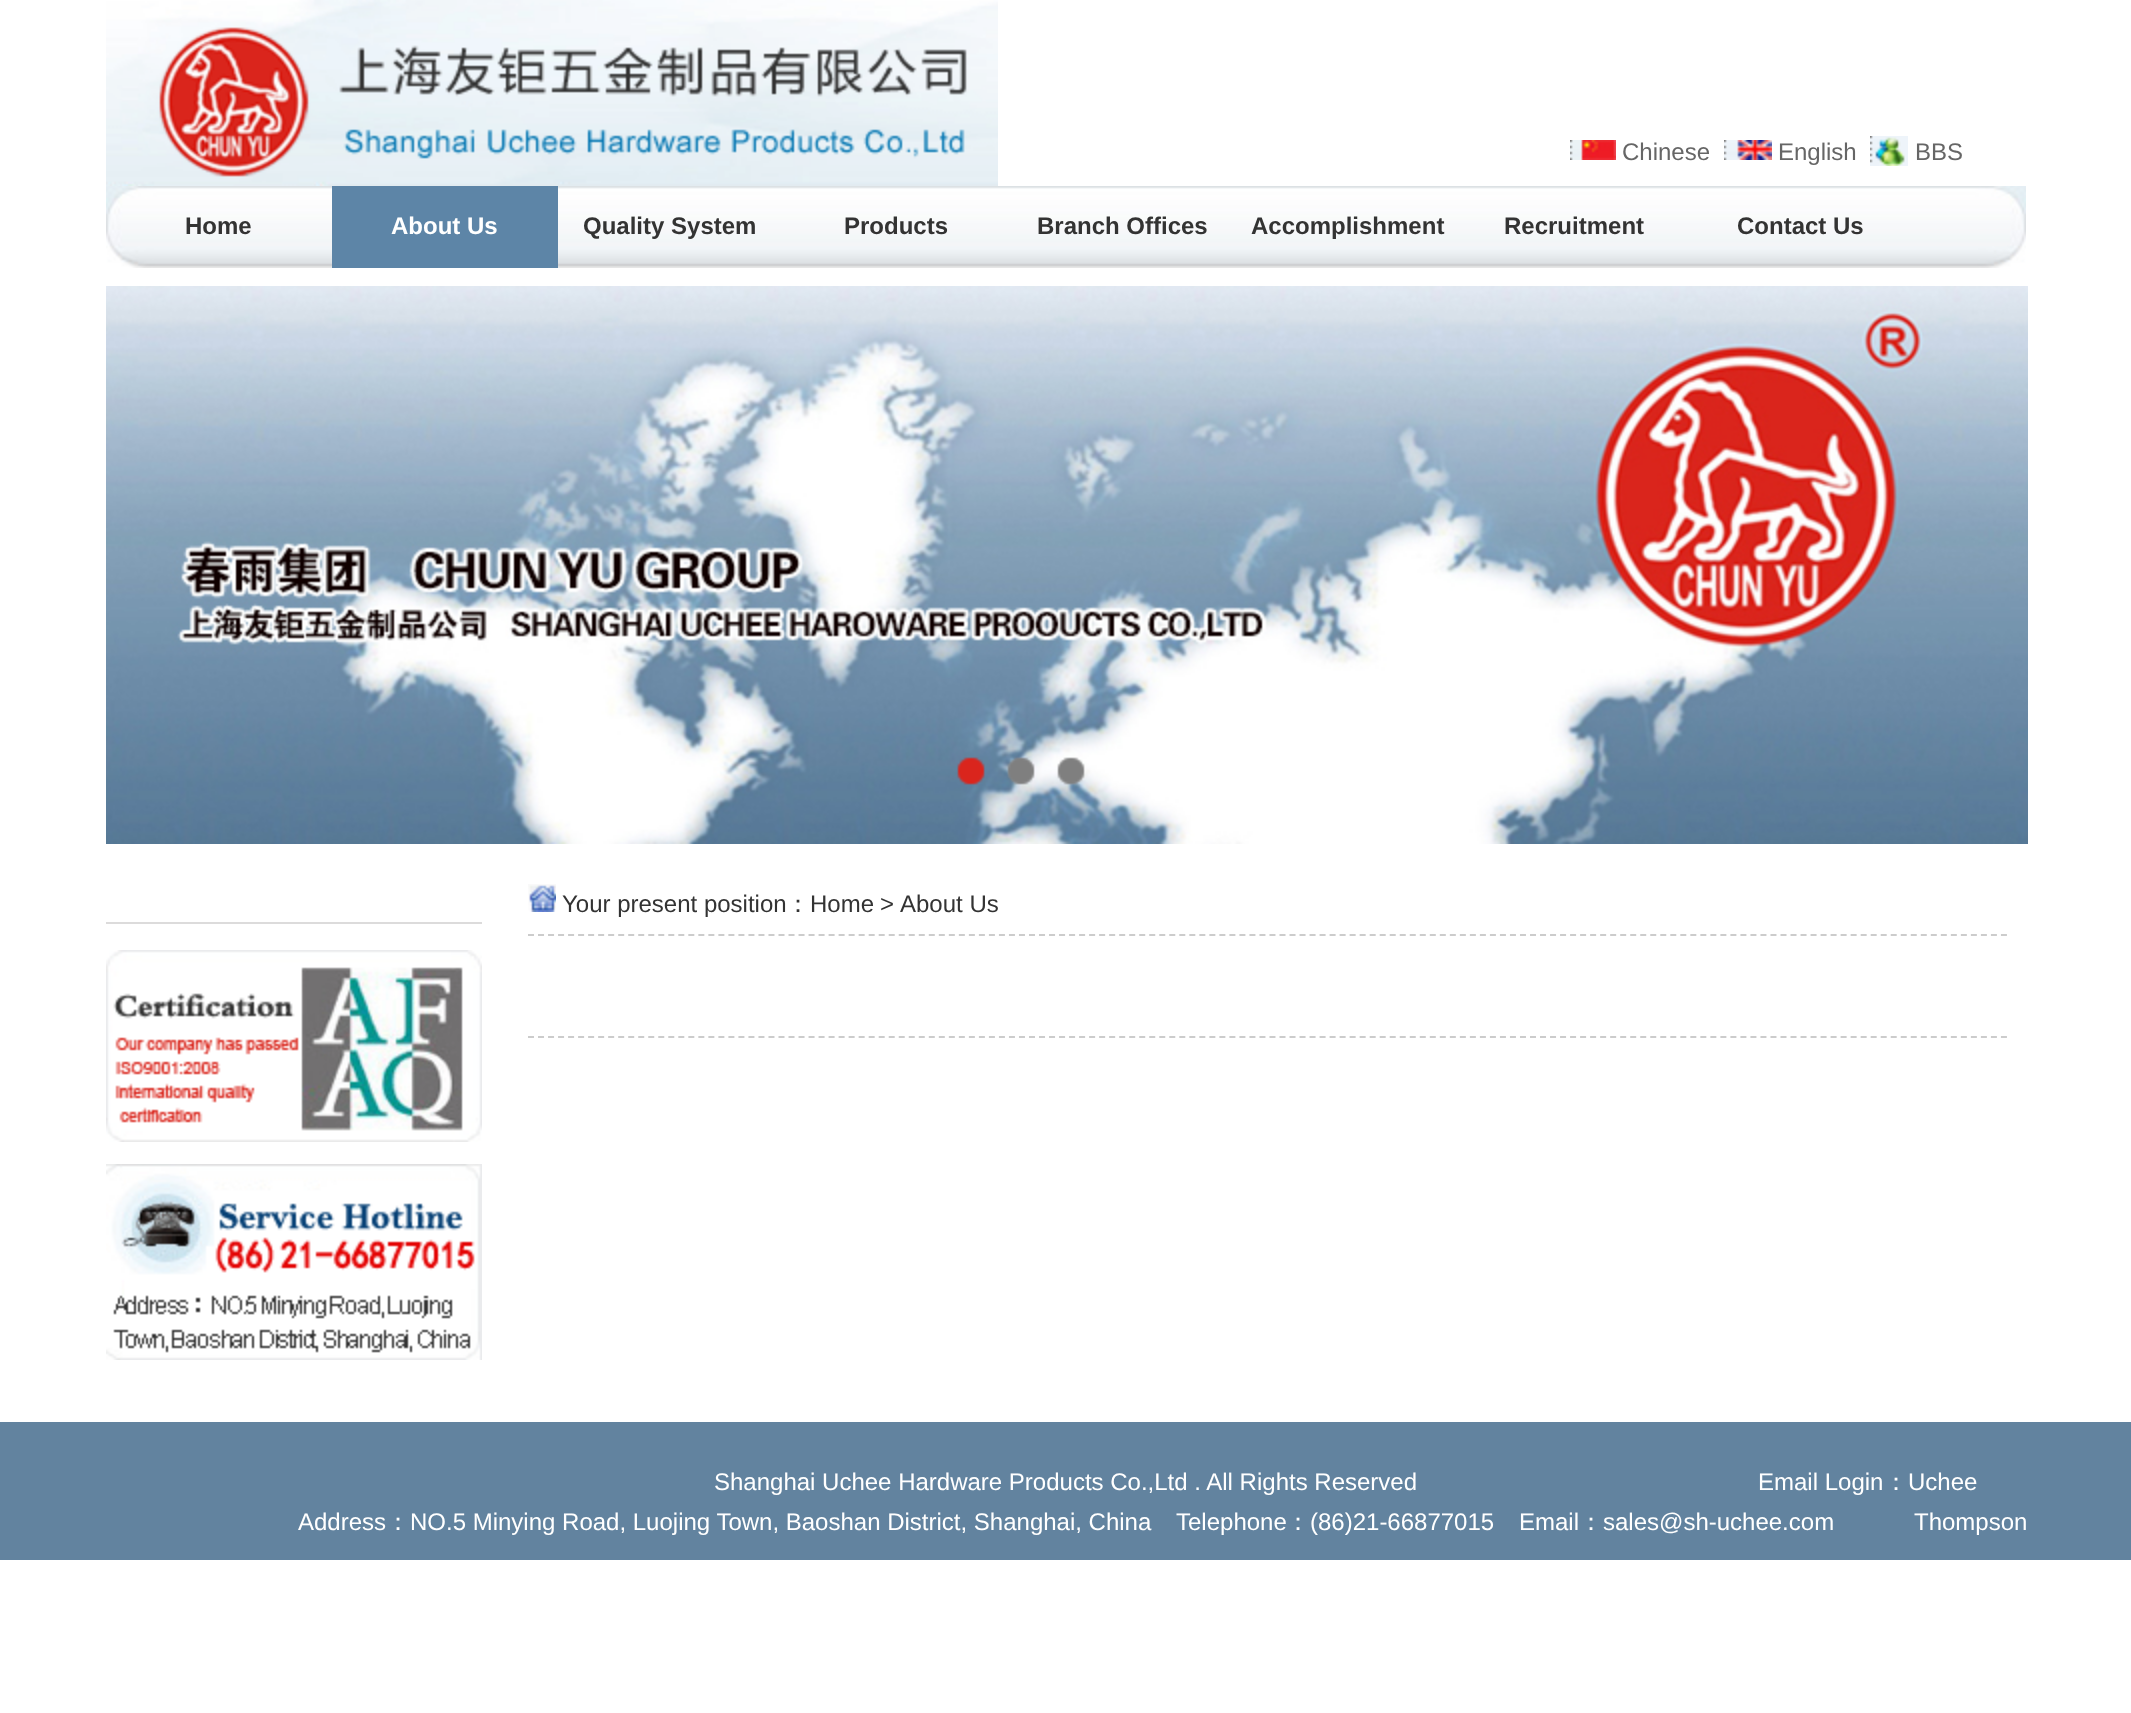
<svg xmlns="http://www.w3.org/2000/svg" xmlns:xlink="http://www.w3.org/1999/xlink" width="2131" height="1713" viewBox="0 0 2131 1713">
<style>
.cls-1{font:24px Liberation Sans;fill:#666666}
.cls-2{font:bold 24px Liberation Sans;fill:#333333}
.cls-3{font:bold 24px Liberation Sans;fill:#ffffff}
.cls-4{font:24px Liberation Sans;fill:#333333}
.cls-5{font:500 24px WenQuanYi Zen Hei;fill:#333333}
.cls-6{font:24px Liberation Sans;fill:#ffffff}
.cls-7{font:500 24px WenQuanYi Zen Hei;fill:#ffffff}
</style>
<rect width="100%" height="100%" fill="#ffffff"/>
<image xlink:href="image0.png" x="106" y="0" width="892" height="186"/>
<image xlink:href="image1.png" x="1570" y="140" width="46" height="20"/>
<image xlink:href="image2.png" x="1724" y="140" width="48" height="20"/>
<image xlink:href="image3.png" x="1870" y="136" width="38" height="30"/>
<image xlink:href="image4.png" x="106" y="186" width="1920" height="82"/>
<rect fill="#5d85a7" x="332" y="186" width="226" height="82"/>
<image xlink:href="image5.png" x="106" y="286" width="1922" height="558"/>
<image xlink:href="image6.png" x="957" y="757" width="28" height="28"/>
<image xlink:href="image7.png" x="1007" y="757" width="28" height="28"/>
<image xlink:href="image8.png" x="1057" y="757" width="28" height="28"/>
<path fill="none" stroke="#cccccc" stroke-width="2" stroke-dasharray="6 4.02" d="M528 935H2008"/>
<image xlink:href="image9.png" x="528" y="884" width="28" height="28"/>
<path fill="none" stroke="#cccccc" stroke-width="2" stroke-dasharray="6 4.02" d="M528 1037H2008"/>
<rect fill="#dcdbdb" x="106" y="922" width="376" height="2"/>
<image xlink:href="image10.png" x="106" y="950" width="376" height="192"/>
<image xlink:href="image11.png" x="106" y="1164" width="376" height="196"/>
<rect fill="#62839f" x="0" y="1422" width="2131" height="138"/>
<text class="cls-1" x="1622" y="160">Chinese</text>
<text class="cls-1" x="1778" y="160">English</text>
<text class="cls-1" x="1915" y="160">BBS</text>
<text class="cls-2" x="185" y="234">Home</text>
<text class="cls-3" x="391" y="234">About Us</text>
<text class="cls-2" x="583" y="234">Quality System</text>
<text class="cls-2" x="844" y="234">Products</text>
<text class="cls-2" x="1037" y="234">Branch Offices</text>
<text class="cls-2" x="1251" y="234">Accomplishment</text>
<text class="cls-2" x="1504" y="234">Recruitment</text>
<text class="cls-2" x="1737" y="234">Contact Us</text>
<text class="cls-4" x="562" y="912">Your present position</text>
<text class="cls-5" x="786" y="912">：</text>
<text class="cls-4" x="810" y="912">Home</text>
<text class="cls-4" x="880" y="912">&gt;</text>
<text class="cls-4" x="900" y="912">About Us</text>
<text class="cls-6" x="298" y="1530">Address</text>
<text class="cls-6" x="714" y="1490">Shanghai Uchee Hardware Products Co.,Ltd . All Rights Reserved</text>
<text class="cls-6" x="1758" y="1490">Email Login</text>
<text class="cls-7" x="1884" y="1490">：</text>
<text class="cls-6" x="1908" y="1490">Uchee</text>
<text class="cls-6" x="1914" y="1530">Thompson</text>
<text class="cls-7" x="386" y="1530">：</text>
<text class="cls-6" x="410" y="1530">NO.5 Minying Road, Luojing Town, Baoshan District, Shanghai, China</text>
<text class="cls-6" x="1176" y="1530">Telephone</text>
<text class="cls-7" x="1286" y="1530">：</text>
<text class="cls-6" x="1310" y="1530">(86)21-66877015</text>
<text class="cls-6" x="1519" y="1530">Email</text>
<text class="cls-7" x="1579" y="1530">：</text>
<text class="cls-6" x="1603" y="1530">sales@sh-uchee.com</text>
</svg>
